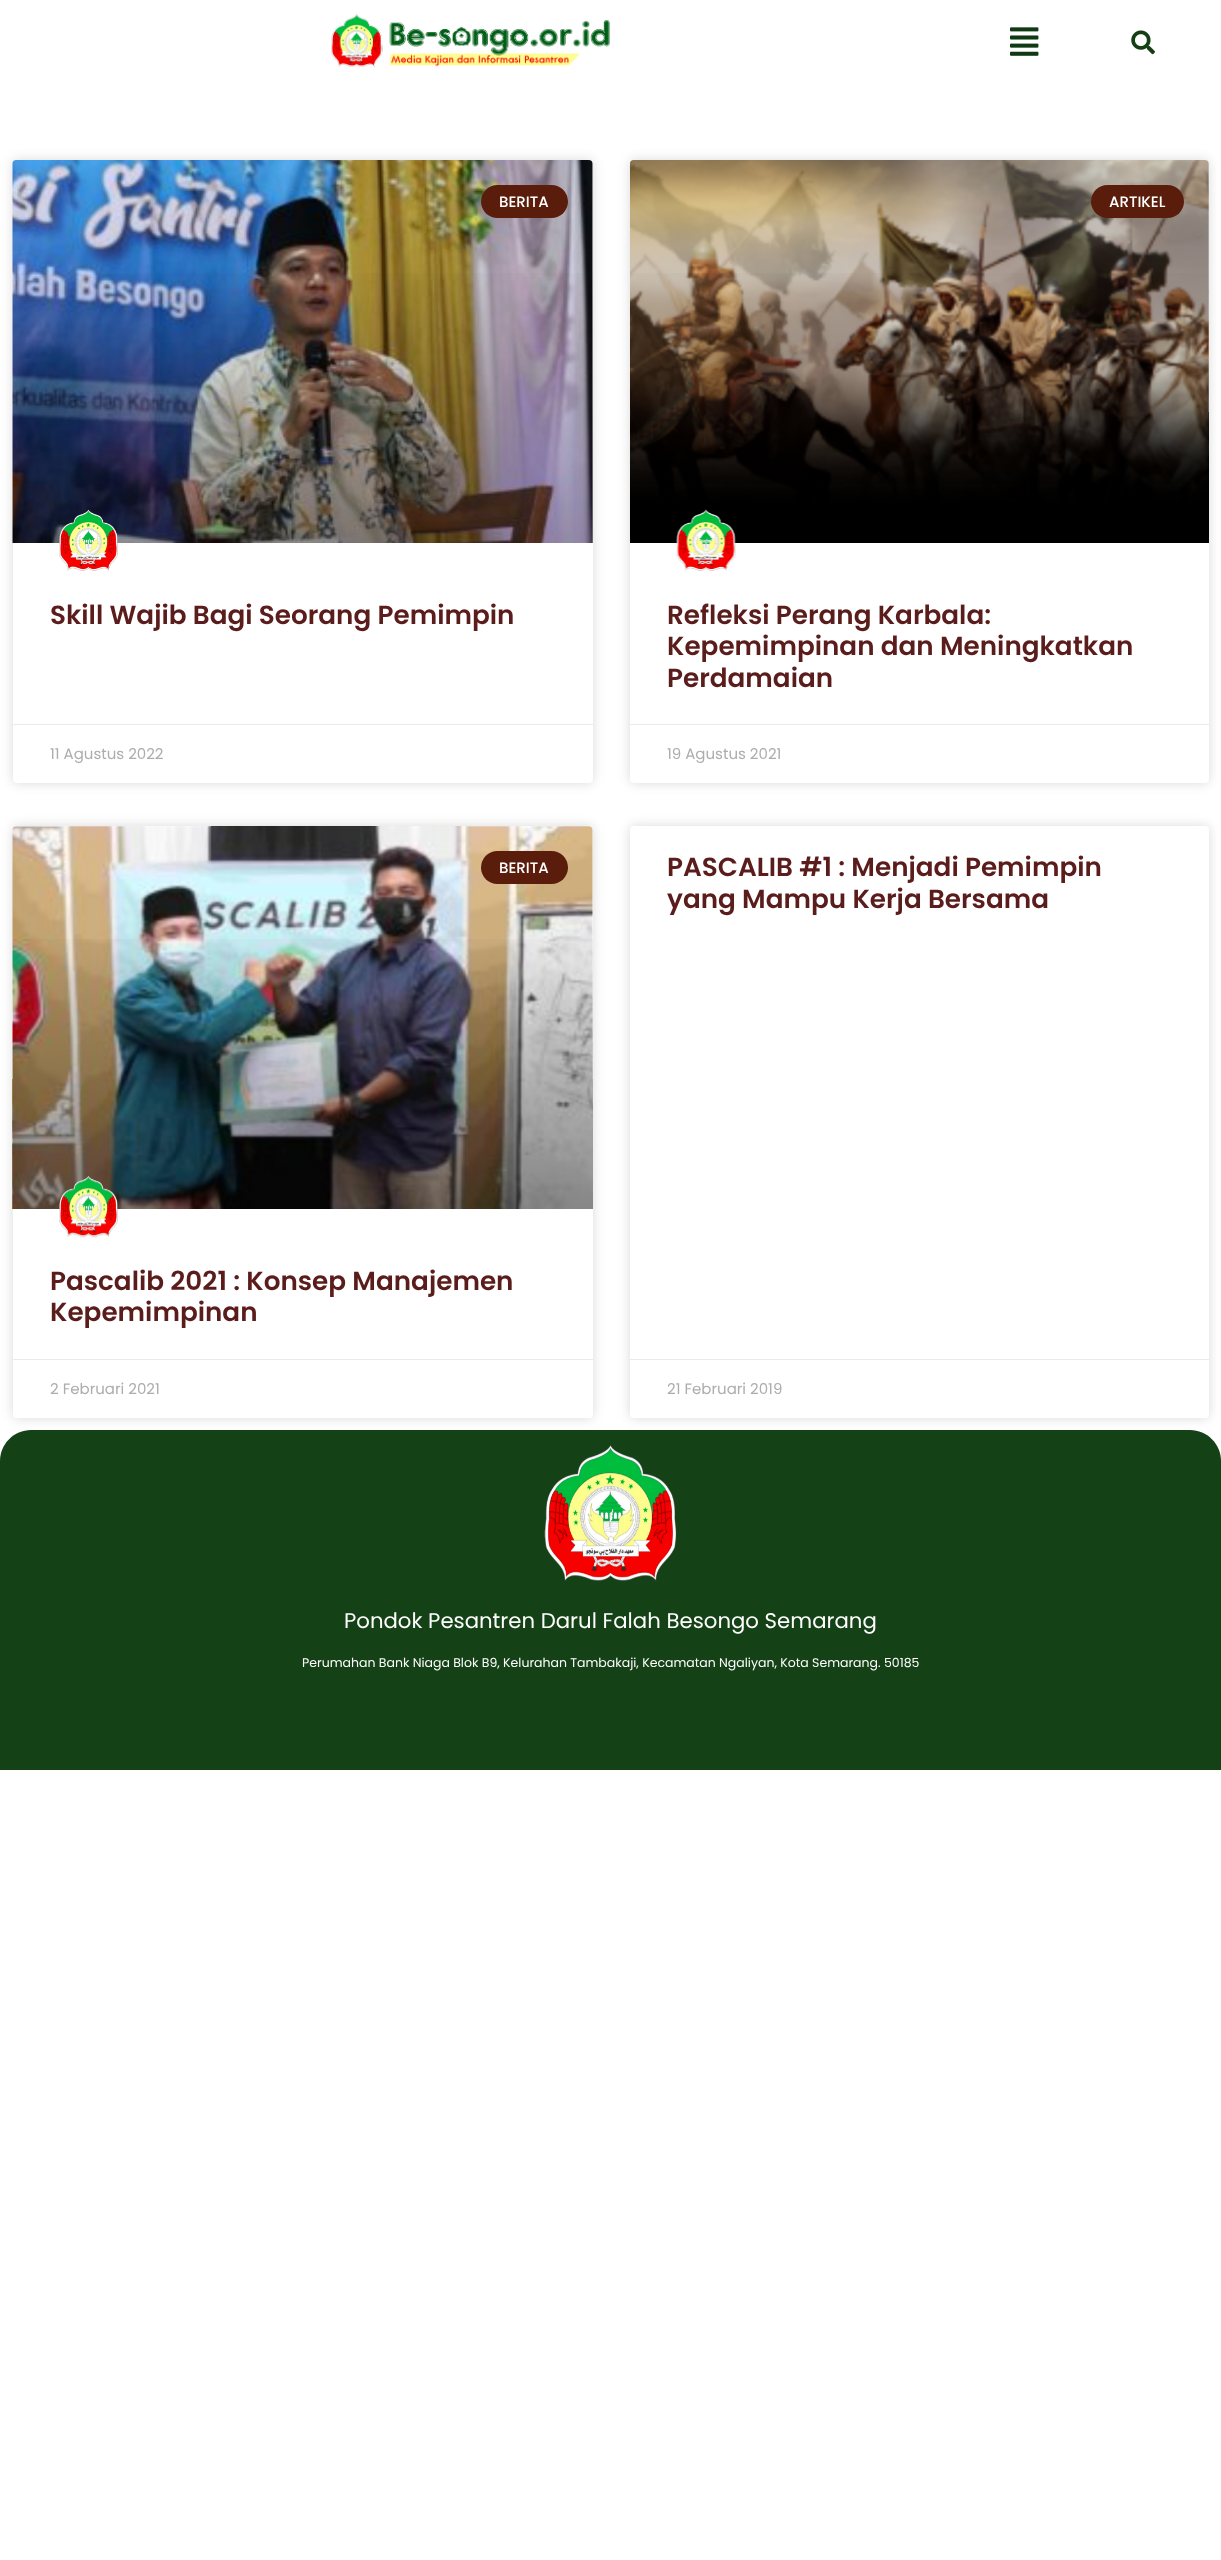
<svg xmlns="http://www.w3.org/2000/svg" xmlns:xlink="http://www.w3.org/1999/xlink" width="1221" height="2560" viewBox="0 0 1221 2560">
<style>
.cls-1{font:500 15px Poppins;fill:#ffffff}
.cls-2{font:600 26.25px Poppins;fill:#5b1c1c}
.cls-3{font:15px Poppins;fill:#adadad}
.cls-4{font:21.25px Poppins;fill:#ffffff}
.cls-5{font:12.5px Poppins;fill:#ffffff}
</style>
<defs>
<linearGradient id="g1" gradientUnits="userSpaceOnUse" x1="303" y1="543" x2="303" y2="160"><stop offset="0" stop-color="#000000" stop-opacity="0.35"/><stop offset="0.75" stop-color="#000000" stop-opacity="0"/></linearGradient>
<linearGradient id="g2" gradientUnits="userSpaceOnUse" x1="919" y1="543" x2="919" y2="160"><stop offset="0" stop-color="#000000" stop-opacity="0.35"/><stop offset="0.75" stop-color="#000000" stop-opacity="0"/></linearGradient>
<linearGradient id="g3" gradientUnits="userSpaceOnUse" x1="303" y1="1209" x2="303" y2="826"><stop offset="0" stop-color="#000000" stop-opacity="0.35"/><stop offset="0.75" stop-color="#000000" stop-opacity="0"/></linearGradient>
</defs>
<rect width="100%" height="100%" fill="#ffffff"/>
<image xlink:href="image0.png" x="331" y="13" width="279" height="55"/>
<image xlink:href="image1.png" x="1010" y="27" width="29" height="29"/>
<image xlink:href="image2.png" x="1131" y="30" width="24" height="25"/>
<rect fill="#000000" fill-opacity="0.15" filter="blur(6px)" x="13" y="160" width="580" height="623" rx="4"/>
<rect fill="#ffffff" x="13" y="160" width="580" height="623" rx="4"/>
<image xlink:href="image3.png" x="12" y="160" width="581" height="383"/>
<rect fill="url(#g1)" x="13" y="273" width="580" height="270"/>
<rect fill="#5a1c0b" x="481" y="185" width="87" height="33" rx="16.5"/>
<image xlink:href="image4.png" x="59" y="509" width="59" height="62"/>
<rect fill="#eaeaea" x="13" y="724" width="580" height="1"/>
<rect fill="#000000" fill-opacity="0.15" filter="blur(6px)" x="630" y="160" width="579" height="623" rx="4"/>
<rect fill="#ffffff" x="630" y="160" width="579" height="623" rx="4"/>
<image xlink:href="image5.png" x="630" y="160" width="579" height="383"/>
<rect fill="url(#g2)" x="630" y="273" width="579" height="211"/>
<rect fill="#5a1c0b" x="1091" y="185" width="93" height="33" rx="16.5"/>
<image xlink:href="image6.png" x="676" y="509" width="60" height="62"/>
<rect fill="#eaeaea" x="630" y="724" width="579" height="1"/>
<rect fill="#000000" fill-opacity="0.15" filter="blur(6px)" x="13" y="826" width="580" height="592" rx="4"/>
<rect fill="#ffffff" x="13" y="826" width="580" height="592" rx="4"/>
<image xlink:href="image7.png" x="12" y="826" width="581" height="383"/>
<rect fill="url(#g3)" x="13" y="939" width="580" height="270"/>
<rect fill="#5a1c0b" x="481" y="851" width="87" height="33" rx="16.5"/>
<image xlink:href="image8.png" x="59" y="1175" width="59" height="63"/>
<rect fill="#eaeaea" x="13" y="1359" width="580" height="1"/>
<rect fill="#000000" fill-opacity="0.15" filter="blur(6px)" x="630" y="826" width="579" height="592" rx="4"/>
<rect fill="#ffffff" x="630" y="826" width="579" height="592" rx="4"/>
<rect fill="#eaeaea" x="630" y="1359" width="579" height="1"/>
<path fill="#144115" d="M31 1430H1190C1207 1430 1221 1444 1221 1461V1770H0V1461C0 1444 14 1430 31 1430Z"/>
<image xlink:href="image9.png" x="544" y="1445" width="133" height="136"/>
<text class="cls-1" x="499" y="207">BERITA</text>
<text class="cls-2" x="50" y="624">Skill Wajib Bagi Seorang Pemimpin</text>
<text class="cls-3" x="50" y="759">11 Agustus 2022</text>
<text class="cls-1" x="1109" y="207">ARTIKEL</text>
<text class="cls-2"><tspan x="667" y="624">Refleksi Perang Karbala:</tspan><tspan x="667" y="655">Kepemimpinan dan Meningkatkan</tspan><tspan x="667" y="687">Perdamaian</tspan></text>
<text class="cls-3" x="667" y="759">19 Agustus 2021</text>
<text class="cls-1" x="499" y="873">BERITA</text>
<text class="cls-2"><tspan x="50" y="1290">Pascalib 2021 : Konsep Manajemen</tspan><tspan x="50" y="1321">Kepemimpinan</tspan></text>
<text class="cls-3" x="50" y="1394">2 Februari 2021</text>
<text class="cls-2"><tspan x="667" y="876">PASCALIB #1 : Menjadi Pemimpin</tspan><tspan x="667" y="908">yang Mampu Kerja Bersama</tspan></text>
<text class="cls-3" x="667" y="1394">21 Februari 2019</text>
<text class="cls-4" x="344" y="1628">Pondok Pesantren Darul Falah Besongo Semarang</text>
<text class="cls-5" x="302" y="1667">Perumahan Bank Niaga Blok B9, Kelurahan Tambakaji, Kecamatan Ngaliyan, Kota Semarang. 50185</text>
</svg>
